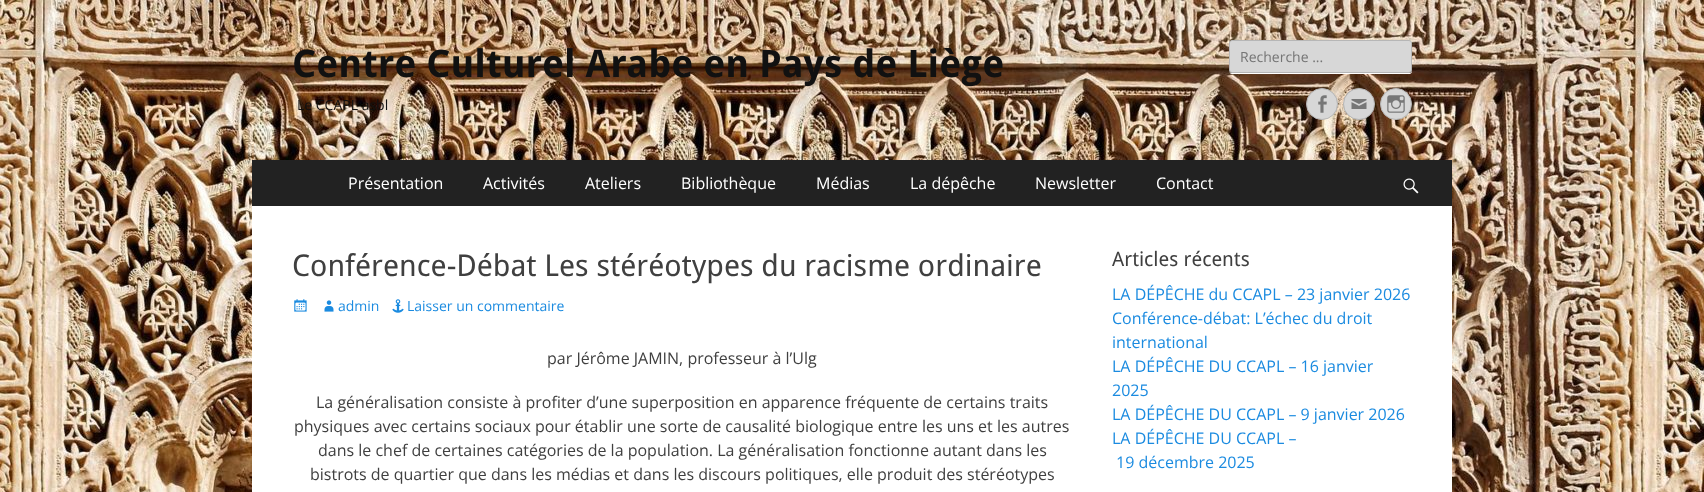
<svg xmlns="http://www.w3.org/2000/svg" xmlns:xlink="http://www.w3.org/1999/xlink" width="1704" height="492" viewBox="0 0 1704 492">
<style>
.cls-1{font:bold 38px Droid Sans;fill:#111111}
.cls-2{font:14px Open Sans;fill:#111111}
.cls-3{font:14px Open Sans;fill:#757575}
.cls-4{font:16px Open Sans;fill:#ffffff}
.cls-5{font:30px Droid Sans;fill:#404040}
.cls-6{font:14px Open Sans;fill:#1b8be0}
.cls-7{font:16px Open Sans;fill:#404040}
.cls-8{font:20px Droid Sans;fill:#404040}
.cls-9{font:16px Open Sans;fill:#1b8be0}
</style>
<rect width="100%" height="100%" fill="#ffffff"/>
<image xlink:href="image0.png" x="0" y="0" width="1704" height="492"/>
<path fill="#ffffff" d="M1229 70C1229 72 1230 74 1232 74H1410C1412 73 1412 72 1412 70C1412 72 1411 73 1409 73H1232C1230 73 1229 72 1229 70Z"/>
<rect fill="#d7d7d7" stroke="#b6b6b6" x="1229.5" y="40.5" width="182" height="32" rx="2.5"/>
<circle fill="#d7d7d7" stroke="#b6b6b6" cx="1322" cy="104" r="15.5"/>
<image xlink:href="image1.png" x="1318" y="95" width="9" height="18"/>
<circle fill="#d7d7d7" stroke="#b6b6b6" cx="1359" cy="104" r="15.5"/>
<image xlink:href="image2.png" x="1351" y="99" width="16" height="10"/>
<circle fill="#d7d7d7" stroke="#b6b6b6" cx="1396" cy="104" r="15.5"/>
<image xlink:href="image3.png" x="1387" y="95" width="18" height="18"/>
<rect fill="#222222" x="252" y="160" width="1200" height="46"/>
<image xlink:href="image4.png" x="1403" y="178" width="16" height="16"/>
<rect fill="#ffffff" x="252" y="206" width="1200" height="286"/>
<image xlink:href="image5.png" x="294" y="299" width="13" height="13"/>
<image xlink:href="image6.png" x="324" y="300" width="10" height="12"/>
<image xlink:href="image7.png" x="392" y="299" width="12" height="14"/>
<text class="cls-1" x="292" y="77">Centre Culturel Arabe en Pays de Liège</text>
<text class="cls-2" x="297" y="110">Le CCAPL asbl</text>
<text class="cls-3" x="1240" y="62">Recherche ...</text>
<text class="cls-4" x="348" y="189">Présentation</text>
<text class="cls-4" x="483" y="189">Activités</text>
<text class="cls-4" x="585" y="189">Ateliers</text>
<text class="cls-4" x="681" y="189">Bibliothèque</text>
<text class="cls-4" x="816" y="189">Médias</text>
<text class="cls-4" x="910" y="189">La dépêche</text>
<text class="cls-4" x="1035" y="189">Newsletter</text>
<text class="cls-4" x="1156" y="189">Contact</text>
<text class="cls-5" x="292" y="276">Conférence-Débat Les stéréotypes du racisme ordinaire</text>
<text class="cls-6" x="338" y="311">admin</text>
<text class="cls-6" x="407" y="311">Laisser un commentaire</text>
<text class="cls-7" x="547" y="364">par Jérôme JAMIN, professeur à l’Ulg</text>
<text class="cls-7" x="316" y="408">La généralisation consiste à profiter d’une superposition en apparence fréquente de certains traits</text>
<text class="cls-7" x="294" y="432">physiques avec certains sociaux pour établir une sorte de causalité biologique entre les uns et les autres</text>
<text class="cls-7" x="318" y="456">dans le chef de certaines catégories de la population. La généralisation fonctionne autant dans les</text>
<text class="cls-7" x="310" y="480">bistrots de quartier que dans les médias et dans les discours politiques, elle produit des stéréotypes</text>
<text class="cls-8" x="1112" y="266">Articles récents</text>
<text class="cls-9"><tspan x="1112" y="300">LA DÉPÊCHE du CCAPL – 23 janvier 2026</tspan><tspan x="1112" y="324">Conférence-débat: L’échec du droit</tspan><tspan x="1112" y="348">international</tspan><tspan x="1112" y="372">LA DÉPÊCHE DU CCAPL – 16 janvier</tspan><tspan x="1112" y="396">2025</tspan><tspan x="1112" y="420">LA DÉPÊCHE DU CCAPL – 9 janvier 2026</tspan><tspan x="1112" y="444">LA DÉPÊCHE DU CCAPL –</tspan></text>
<text class="cls-9" x="1116" y="468">19 décembre 2025</text>
</svg>
